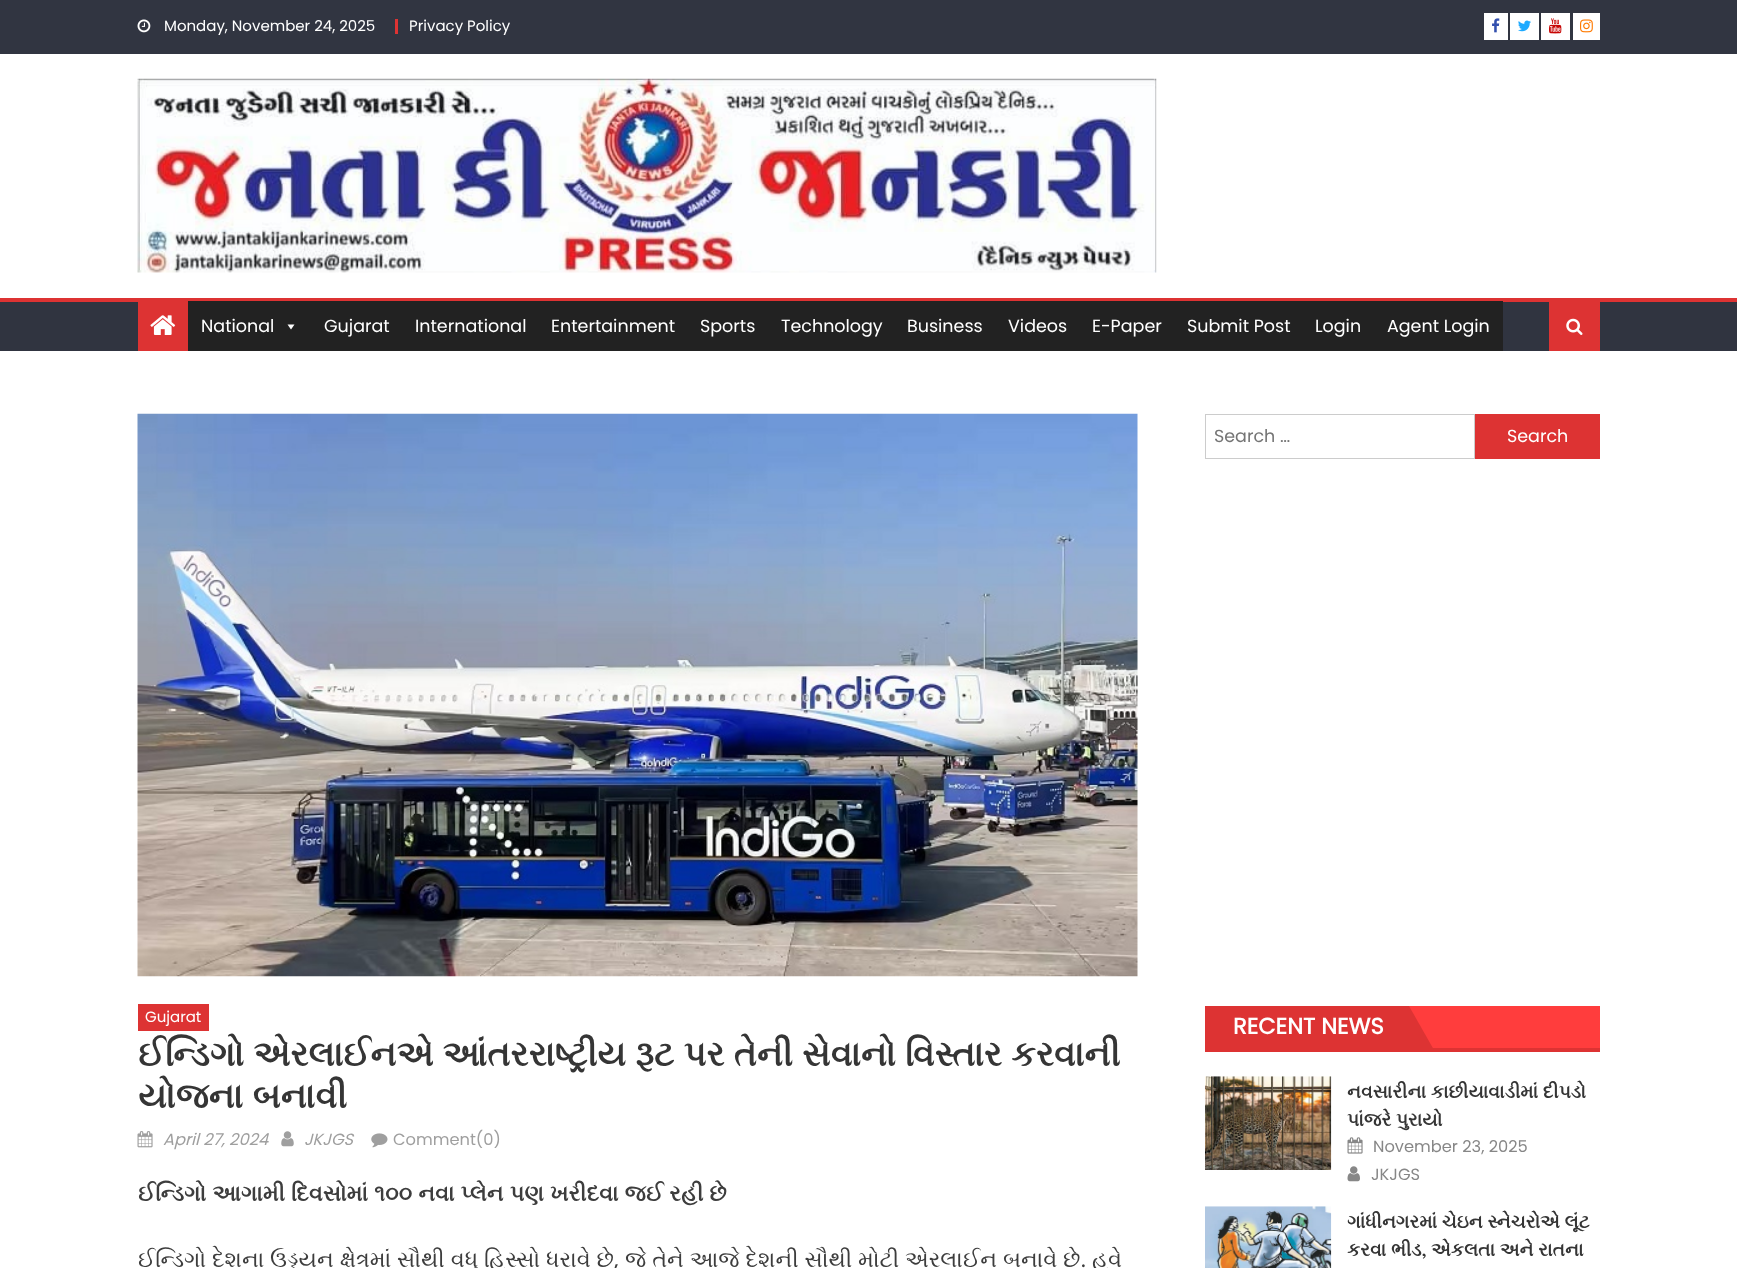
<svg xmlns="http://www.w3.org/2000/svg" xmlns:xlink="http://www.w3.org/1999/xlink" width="1737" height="1268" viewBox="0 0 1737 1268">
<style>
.cls-1{font:15px Poppins;fill:#ffffff}
.cls-2{font:17.5px Poppins;fill:#ffffff}
.cls-3{font:bold 35px FreeSerif;fill:#353535}
.cls-4{font:italic 16.25px Poppins;fill:#9f9f9f}
.cls-5{font:16.25px Poppins;fill:#9f9f9f}
.cls-6{font:bold 22.5px FreeSerif;fill:#3d3d3d}
.cls-7{font:22.5px FreeSerif;fill:#3d3d3d}
.cls-8{font:22.5px Poppins;fill:#3d3d3d}
.cls-9{font:17.5px Poppins;fill:#757575}
.cls-10{font:bold 22.5px Poppins;fill:#ffffff}
.cls-11{font:bold 18.75px FreeSerif;fill:#353535}
.cls-12{font:16.25px Poppins;fill:#878787}
</style>
<rect width="100%" height="100%" fill="#ffffff"/>
<rect fill="#313541" x="0" y="0" width="1737" height="54"/>
<image xlink:href="image0.png" x="137" y="19" width="14" height="14"/>
<rect fill="#dd3333" x="395" y="19" width="3" height="15"/>
<rect fill="#ffffff" x="1484" y="13" width="24" height="27"/>
<image xlink:href="image1.png" x="1492" y="18" width="8" height="15"/>
<rect fill="#ffffff" x="1510" y="13" width="29" height="27"/>
<image xlink:href="image2.png" x="1518" y="20" width="13" height="12"/>
<rect fill="#ffffff" x="1541" y="13" width="29" height="27"/>
<image xlink:href="image3.png" x="1549" y="18" width="13" height="16"/>
<rect fill="#ffffff" x="1573" y="13" width="27" height="27"/>
<image xlink:href="image4.png" x="1580" y="19" width="13" height="14"/>
<image xlink:href="image5.png" x="137" y="78" width="1020" height="195"/>
<rect fill="#303440" x="0" y="302" width="1737" height="49"/>
<rect fill="#dd3333" x="0" y="298" width="1737" height="4"/>
<rect fill="#dd3333" x="138" y="302" width="50" height="49"/>
<image xlink:href="image6.png" x="150" y="315" width="26" height="20"/>
<rect fill="#222222" x="188" y="301" width="1315" height="50"/>
<path fill="#ffffff" d="M294.5 324.5L291 329.5L287.5 324.5Z"/>
<rect fill="#dd3333" x="1549" y="302" width="51" height="49"/>
<image xlink:href="image7.png" x="1566" y="318" width="17" height="17"/>
<image xlink:href="image8.png" x="137" y="413" width="1001" height="564"/>
<rect fill="#dd3333" x="138" y="1004" width="71" height="27"/>
<image xlink:href="image9.png" x="137" y="1131" width="16" height="17"/>
<image xlink:href="image10.png" x="281" y="1131" width="13" height="16"/>
<image xlink:href="image11.png" x="371" y="1133" width="17" height="15"/>
<rect fill="none" stroke="#cccccc" x="1205.5" y="414.5" width="269" height="44"/>
<rect fill="#dd3333" x="1475" y="414" width="125" height="45"/>
<rect fill="#ff3d3d" x="1409" y="1006" width="191" height="42"/>
<rect fill="#dd3333" x="1205" y="1048" width="395" height="4"/>
<rect fill="#dd3333" x="1205" y="1006" width="3" height="45"/>
<rect fill="#dd3333" x="1208" y="1006" width="201" height="42"/>
<path fill="#dd3333" d="M1434 1050H1409V1006Z"/>
<image xlink:href="image12.png" x="1205" y="1076" width="127" height="94"/>
<image xlink:href="image13.png" x="1347" y="1137" width="16" height="17"/>
<image xlink:href="image14.png" x="1347" y="1166" width="13" height="16"/>
<image xlink:href="image15.png" x="1205" y="1206" width="127" height="62"/>
<text class="cls-1" x="164" y="31">Monday, November 24, 2025</text>
<text class="cls-1" x="409" y="31">Privacy Policy</text>
<text class="cls-2" x="201" y="332">National</text>
<text class="cls-2" x="324" y="332">Gujarat</text>
<text class="cls-2" x="415" y="332">International</text>
<text class="cls-2" x="551" y="332">Entertainment</text>
<text class="cls-2" x="700" y="332">Sports</text>
<text class="cls-2" x="781" y="332">Technology</text>
<text class="cls-2" x="907" y="332">Business</text>
<text class="cls-2" x="1008" y="332">Videos</text>
<text class="cls-2" x="1092" y="332">E-Paper</text>
<text class="cls-2" x="1187" y="332">Submit Post</text>
<text class="cls-2" x="1315" y="332">Login</text>
<text class="cls-2" x="1387" y="332">Agent Login</text>
<text class="cls-1" x="145" y="1022">Gujarat</text>
<text class="cls-3"><tspan x="138" y="1066" word-spacing="0.5">ઈન્ડિગો એરલાઈનએ આંતરરાષ્ટ્રીય રૂટ પર તેની સેવાનો વિસ્તાર કરવાની</tspan><tspan x="138" y="1108" word-spacing="0.5">યોજના બનાવી</tspan></text>
<text class="cls-4" x="163" y="1145">April 27, 2024</text>
<text class="cls-4" x="304" y="1145">JKJGS</text>
<text class="cls-5" x="393" y="1145">Comment(0)</text>
<text class="cls-6" x="138" y="1201" word-spacing="0.4">ઈન્ડિગો આગામી દિવસોમાં ૧૦૦ નવા પ્લેન પણ ખરીદવા જઈ રહી છે</text>
<text class="cls-7" x="138" y="1267" word-spacing="0.25">ઈન્ડિગો દેશના ઉડ્ડયન ક્ષેત્રમાં સૌથી વધુ હિસ્સો ધરાવે છે</text>
<text class="cls-7" x="1092" y="1267">હવે</text>
<text class="cls-8" x="614" y="1267">,</text>
<text class="cls-7" x="625" y="1267" word-spacing="0.25">જે તેને આજે દેશની સૌથી મોટી એરલાઈન બનાવે છે</text>
<text class="cls-8" x="1081" y="1267">.</text>
<text class="cls-9" x="1214" y="442">Search …</text>
<text class="cls-2" x="1507" y="442">Search</text>
<text class="cls-10" x="1233" y="1034">RECENT NEWS</text>
<text class="cls-11"><tspan x="1347" y="1098">નવસારીના કાછીયાવાડીમાં દીપડો</tspan><tspan x="1347" y="1126">પાંજરે પુરાયો</tspan></text>
<text class="cls-12" x="1373" y="1152">November 23, 2025</text>
<text class="cls-12" x="1371" y="1180">JKJGS</text>
<text class="cls-11"><tspan x="1347" y="1228">ગાંધીનગરમાં ચેઇન સ્નેચરોએ લૂંટ</tspan><tspan x="1347" y="1256">કરવા ભીડ, એકલતા અને રાતના</tspan></text>
</svg>
